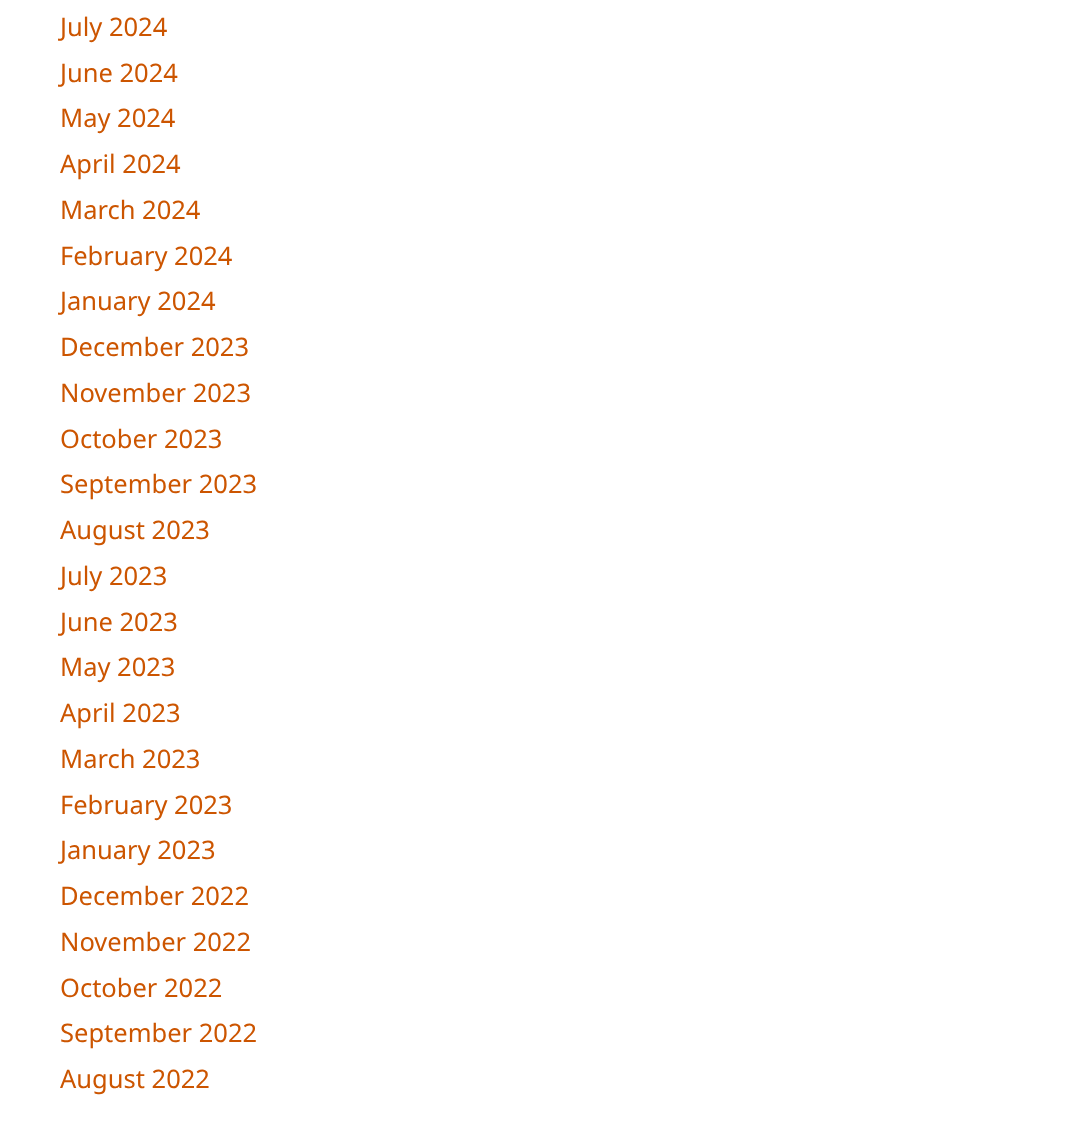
<svg xmlns="http://www.w3.org/2000/svg" xmlns:xlink="http://www.w3.org/1999/xlink" width="1070" height="1127" viewBox="0 0 1070 1127">
<style>
.cls-1{font:25.5px Noto Sans;fill:#cc5500}
</style>
<rect width="100%" height="100%" fill="#ffffff"/>
<text class="cls-1"><tspan x="60" y="36">July 2024</tspan><tspan x="60" y="82">June 2024</tspan><tspan x="60" y="127">May 2024</tspan><tspan x="60" y="173">April 2024</tspan><tspan x="60" y="219">March 2024</tspan><tspan x="60" y="265">February 2024</tspan><tspan x="60" y="310">January 2024</tspan><tspan x="60" y="356">December 2023</tspan><tspan x="60" y="402">November 2023</tspan><tspan x="60" y="448">October 2023</tspan><tspan x="60" y="493">September 2023</tspan><tspan x="60" y="539">August 2023</tspan><tspan x="60" y="585">July 2023</tspan><tspan x="60" y="631">June 2023</tspan><tspan x="60" y="676">May 2023</tspan><tspan x="60" y="722">April 2023</tspan><tspan x="60" y="768">March 2023</tspan><tspan x="60" y="814">February 2023</tspan><tspan x="60" y="859">January 2023</tspan><tspan x="60" y="905">December 2022</tspan><tspan x="60" y="951">November 2022</tspan><tspan x="60" y="997">October 2022</tspan><tspan x="60" y="1042">September 2022</tspan><tspan x="60" y="1088">August 2022</tspan></text>
</svg>
